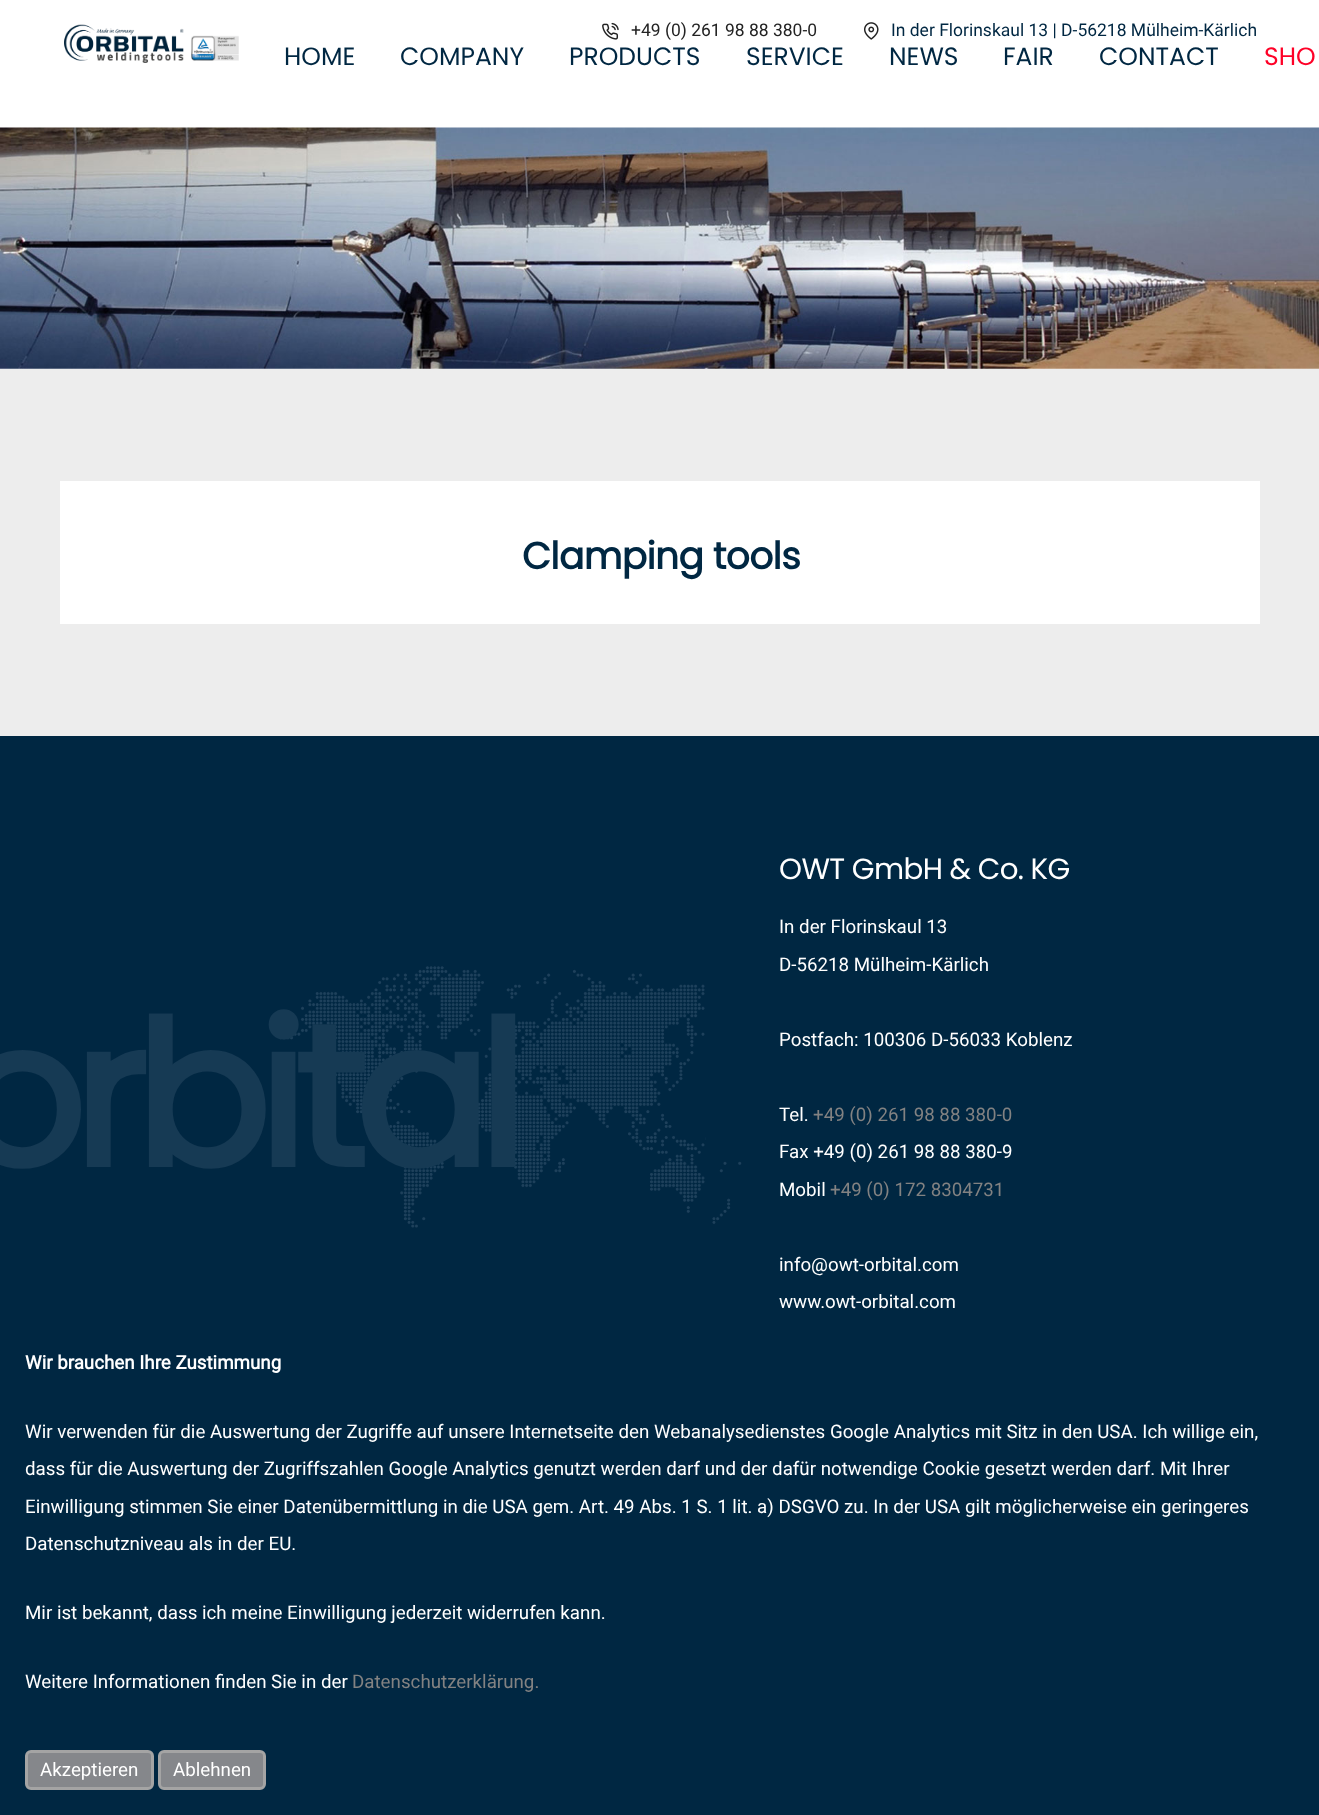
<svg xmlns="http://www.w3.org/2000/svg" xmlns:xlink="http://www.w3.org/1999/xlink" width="1319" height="1815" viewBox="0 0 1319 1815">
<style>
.cls-1{font:17.5px Roboto;fill:#232323}
.cls-2{font:17.5px Roboto;fill:#002742}
.cls-3{font:25px Poppins;fill:#002742}
.cls-4{font:25px Poppins;fill:#fe0127}
.cls-5{font:bold 37.5px Poppins;letter-spacing:-0.6px;fill:#002742}
.cls-6{font:29.25px Poppins;letter-spacing:-0.6px;fill:#ffffff}
.cls-7{font:18.75px Roboto;fill:#ffffff}
.cls-8{font:18.75px Roboto;fill:#828282}
.cls-9{font:bold 200px Poppins;letter-spacing:-12.5px;fill:#163a54}
.cls-10{font:bold 18.75px Roboto;fill:#ffffff}
</style>
<rect width="100%" height="100%" fill="#ffffff"/>
<image xlink:href="image0.png" x="602" y="22" width="17" height="18"/>
<image xlink:href="image1.png" x="864" y="22" width="15" height="18"/>
<image xlink:href="image2.png" x="64" y="24" width="175" height="39"/>
<image xlink:href="image3.png" x="0" y="127" width="1319" height="242"/>
<rect fill="#ededed" x="0" y="369" width="1319" height="367"/>
<rect fill="#ffffff" x="60" y="481" width="1200" height="143"/>
<rect fill="#002742" x="0" y="736" width="1319" height="1079"/>
<image xlink:href="image4.png" x="278" y="966" width="464" height="262"/>
<rect fill="#85878b" stroke="#a4a4a4" stroke-width="3" x="26.5" y="1751.5" width="126" height="37" rx="4.5"/>
<rect fill="#85878b" stroke="#a4a4a4" stroke-width="3" x="159.5" y="1751.5" width="105" height="37" rx="4.5"/>
<text class="cls-1" x="631" y="36">+49 (0) 261 98 88 380-0</text>
<text class="cls-2" x="891" y="36">In der Florinskaul 13 | D-56218 Mülheim-Kärlich</text>
<text class="cls-3" x="284" y="65">HOME</text>
<text class="cls-3" x="400" y="65">COMPANY</text>
<text class="cls-3" x="569" y="65">PRODUCTS</text>
<text class="cls-3" x="746" y="65">SERVICE</text>
<text class="cls-3" x="889" y="65">NEWS</text>
<text class="cls-3" x="1003" y="65">FAIR</text>
<text class="cls-3" x="1099" y="65">CONTACT</text>
<text class="cls-4" x="1264" y="65">SHO</text>
<text class="cls-5" x="522" y="569">Clamping tools</text>
<text class="cls-6" x="779" y="879">OWT GmbH &amp; Co. KG</text>
<text class="cls-7" x="779" y="933">In der Florinskaul 13</text>
<text class="cls-7" x="779" y="971">D-56218 Mülheim-Kärlich</text>
<text class="cls-7" x="779" y="1046">Postfach: 100306 D-56033 Koblenz</text>
<text class="cls-7" x="779" y="1121">Tel.</text>
<text class="cls-8" x="813" y="1121">+49 (0) 261 98 88 380-0</text>
<text class="cls-7" x="779" y="1158">Fax +49 (0) 261 98 88 380-9</text>
<text class="cls-7" x="779" y="1196">Mobil</text>
<text class="cls-8" x="830" y="1196">+49 (0) 172 8304731</text>
<text class="cls-7"><tspan x="779" y="1271">info@owt-orbital.com</tspan><tspan x="779" y="1308">www.owt-orbital.com</tspan></text>
<text class="cls-9" x="-44" y="1167">orbital</text>
<text class="cls-10" x="25" y="1369">Wir brauchen Ihre Zustimmung</text>
<text class="cls-7"><tspan x="25" y="1438">Wir verwenden für die Auswertung der Zugriffe auf unsere Internetseite den Webanalysedienstes Google Analytics mit Sitz in den USA. Ich willige ein,</tspan><tspan x="25" y="1475">dass für die Auswertung der Zugriffszahlen Google Analytics genutzt werden darf und der dafür notwendige Cookie gesetzt werden darf. Mit Ihrer</tspan></text>
<text class="cls-7"><tspan x="25" y="1513">Einwilligung stimmen Sie einer Datenübermittlung in die USA gem. Art. 49 Abs. 1 S. 1 lit. a) DSGVO zu. In der USA gilt möglicherweise ein geringeres</tspan><tspan x="25" y="1550">Datenschutzniveau als in der EU.</tspan></text>
<text class="cls-7" x="25" y="1619">Mir ist bekannt, dass ich meine Einwilligung jederzeit widerrufen kann.</text>
<text class="cls-7" x="25" y="1688">Weitere Informationen finden Sie in der</text>
<text class="cls-8" x="352" y="1688">Datenschutzerklärung.</text>
<text class="cls-7" x="40" y="1776">Akzeptieren</text>
<text class="cls-7" x="173" y="1776">Ablehnen</text>
</svg>
